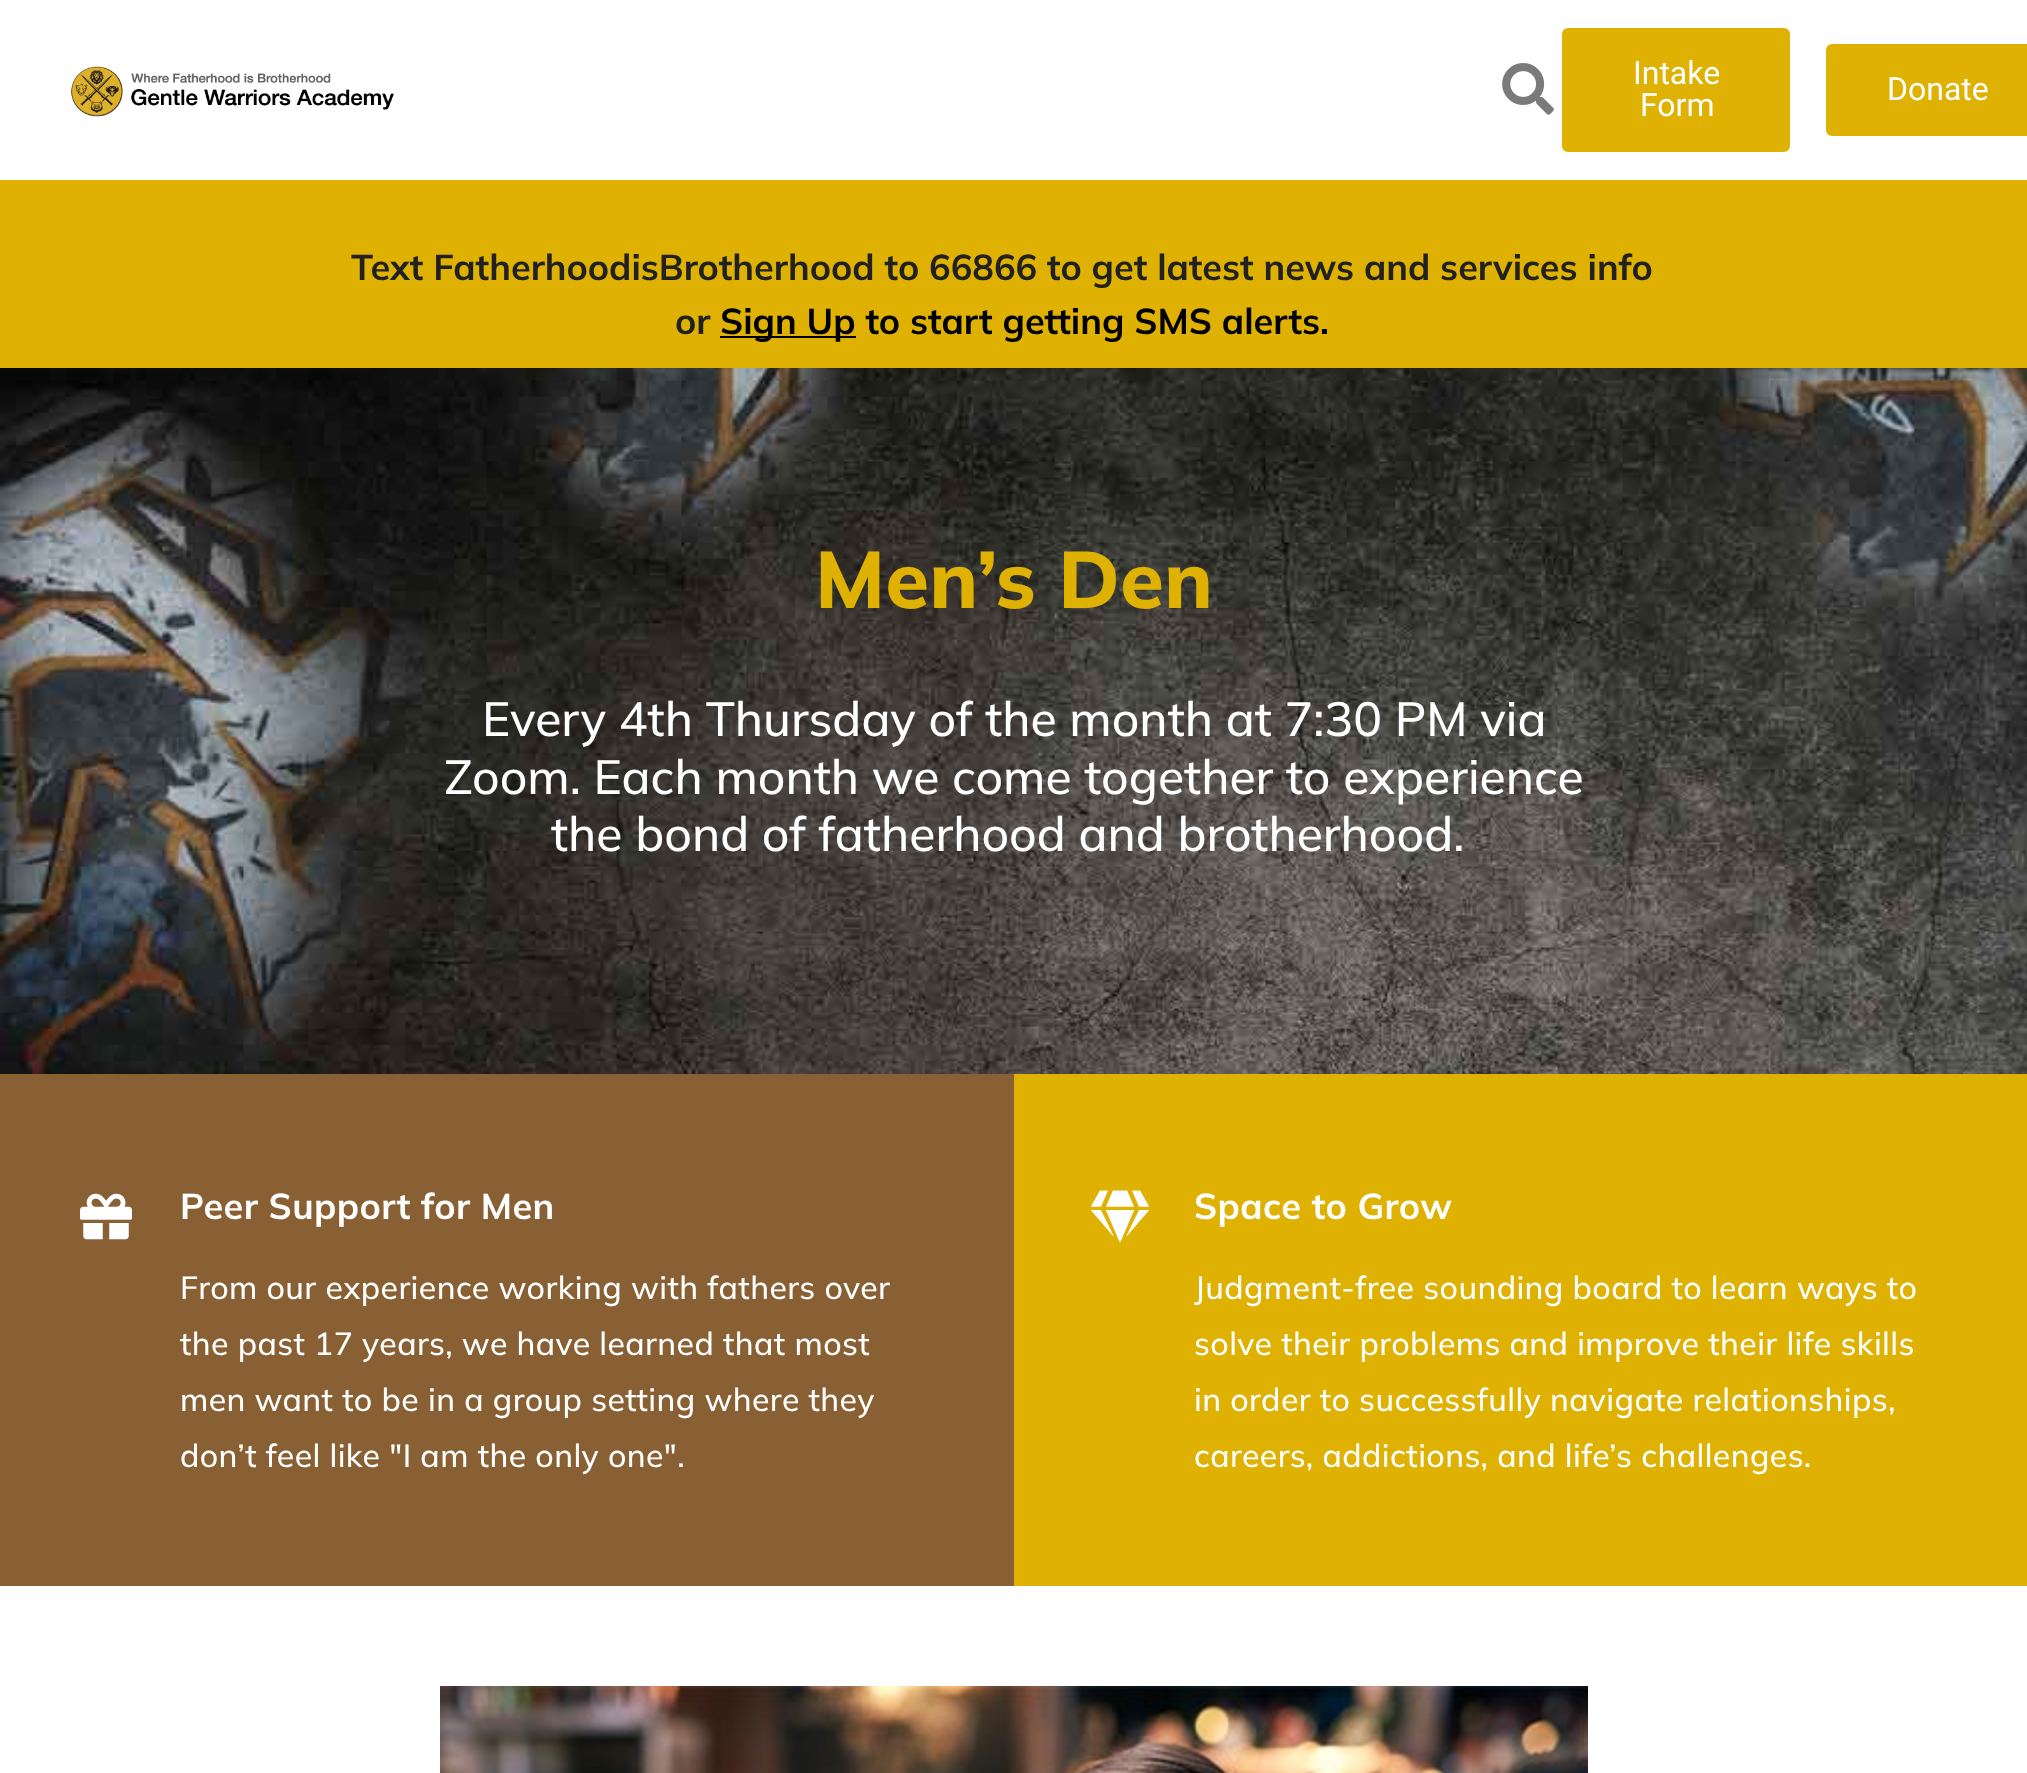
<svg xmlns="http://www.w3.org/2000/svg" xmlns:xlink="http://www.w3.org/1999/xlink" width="2027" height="1773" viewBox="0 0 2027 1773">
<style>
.cls-1{font:32px Roboto;fill:#ffffff}
.cls-2{font:bold 36px Mulish;fill:#212121}
.cls-3{font:bold 36px Mulish;fill:#000000}
.cls-4{font:800 80px Mulish;fill:#deb102}
.cls-5{font:500 48px Mulish;fill:#ffffff}
.cls-6{font:bold 36px Mulish;letter-spacing:0.4px;fill:#ffffff}
.cls-7{font:500 32px Mulish;letter-spacing:0.4px;fill:#ffffff}
</style>
<rect width="100%" height="100%" fill="#ffffff"/>
<image xlink:href="image0.png" x="71" y="66" width="323" height="51"/>
<image xlink:href="image1.png" x="1502" y="63" width="52" height="52"/>
<rect fill="#deb102" stroke="#ffffff" stroke-width="4" x="1560" y="26" width="232" height="128" rx="8"/>
<rect fill="#deb102" stroke="#ffffff" stroke-width="4" x="1824" y="42" width="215" height="96" rx="8"/>
<rect fill="#deb102" x="0" y="180" width="2027" height="188"/>
<rect fill="#000000" x="720" y="336" width="136" height="2"/>
<image xlink:href="image2.png" x="0" y="368" width="2027" height="706"/>
<rect fill="#886034" x="0" y="1074" width="1014" height="512"/>
<image xlink:href="image3.png" x="80" y="1193" width="52" height="47"/>
<rect fill="#deb102" x="1014" y="1074" width="1013" height="512"/>
<image xlink:href="image4.png" x="1090" y="1190" width="60" height="53"/>
<image xlink:href="image5.png" x="440" y="1686" width="1148" height="87"/>
<text class="cls-1" x="1633" y="84">Intake</text>
<text class="cls-1" x="1640" y="116">Form</text>
<text class="cls-1" x="1887" y="100">Donate</text>
<text class="cls-2" x="351" y="280">Text FatherhoodisBrotherhood to 66866 to get latest news and services info</text>
<text class="cls-2" x="675" y="334">or</text>
<text class="cls-3" x="720" y="334">Sign Up to start getting SMS alerts.</text>
<text class="cls-4" x="815" y="608">Men’s Den</text>
<text class="cls-5" x="482" y="736">Every 4th Thursday of the month at 7:30 PM via</text>
<text class="cls-5" x="444" y="794">Zoom. Each month we come together to experience</text>
<text class="cls-5" x="551" y="851">the bond of fatherhood and brotherhood.</text>
<text class="cls-6" x="180" y="1219">Peer Support for Men</text>
<text class="cls-7"><tspan x="180" y="1299">From our experience working with fathers over</tspan><tspan x="180" y="1355">the past 17 years, we have learned that most</tspan><tspan x="180" y="1411">men want to be in a group setting where they</tspan><tspan x="180" y="1467">don’t feel like "I am the only one".</tspan></text>
<text class="cls-6" x="1194" y="1219">Space to Grow</text>
<text class="cls-7"><tspan x="1194" y="1299">Judgment-free sounding board to learn ways to</tspan><tspan x="1194" y="1355">solve their problems and improve their life skills</tspan><tspan x="1194" y="1411">in order to successfully navigate relationships,</tspan><tspan x="1194" y="1467">careers, addictions, and life’s challenges.</tspan></text>
</svg>
